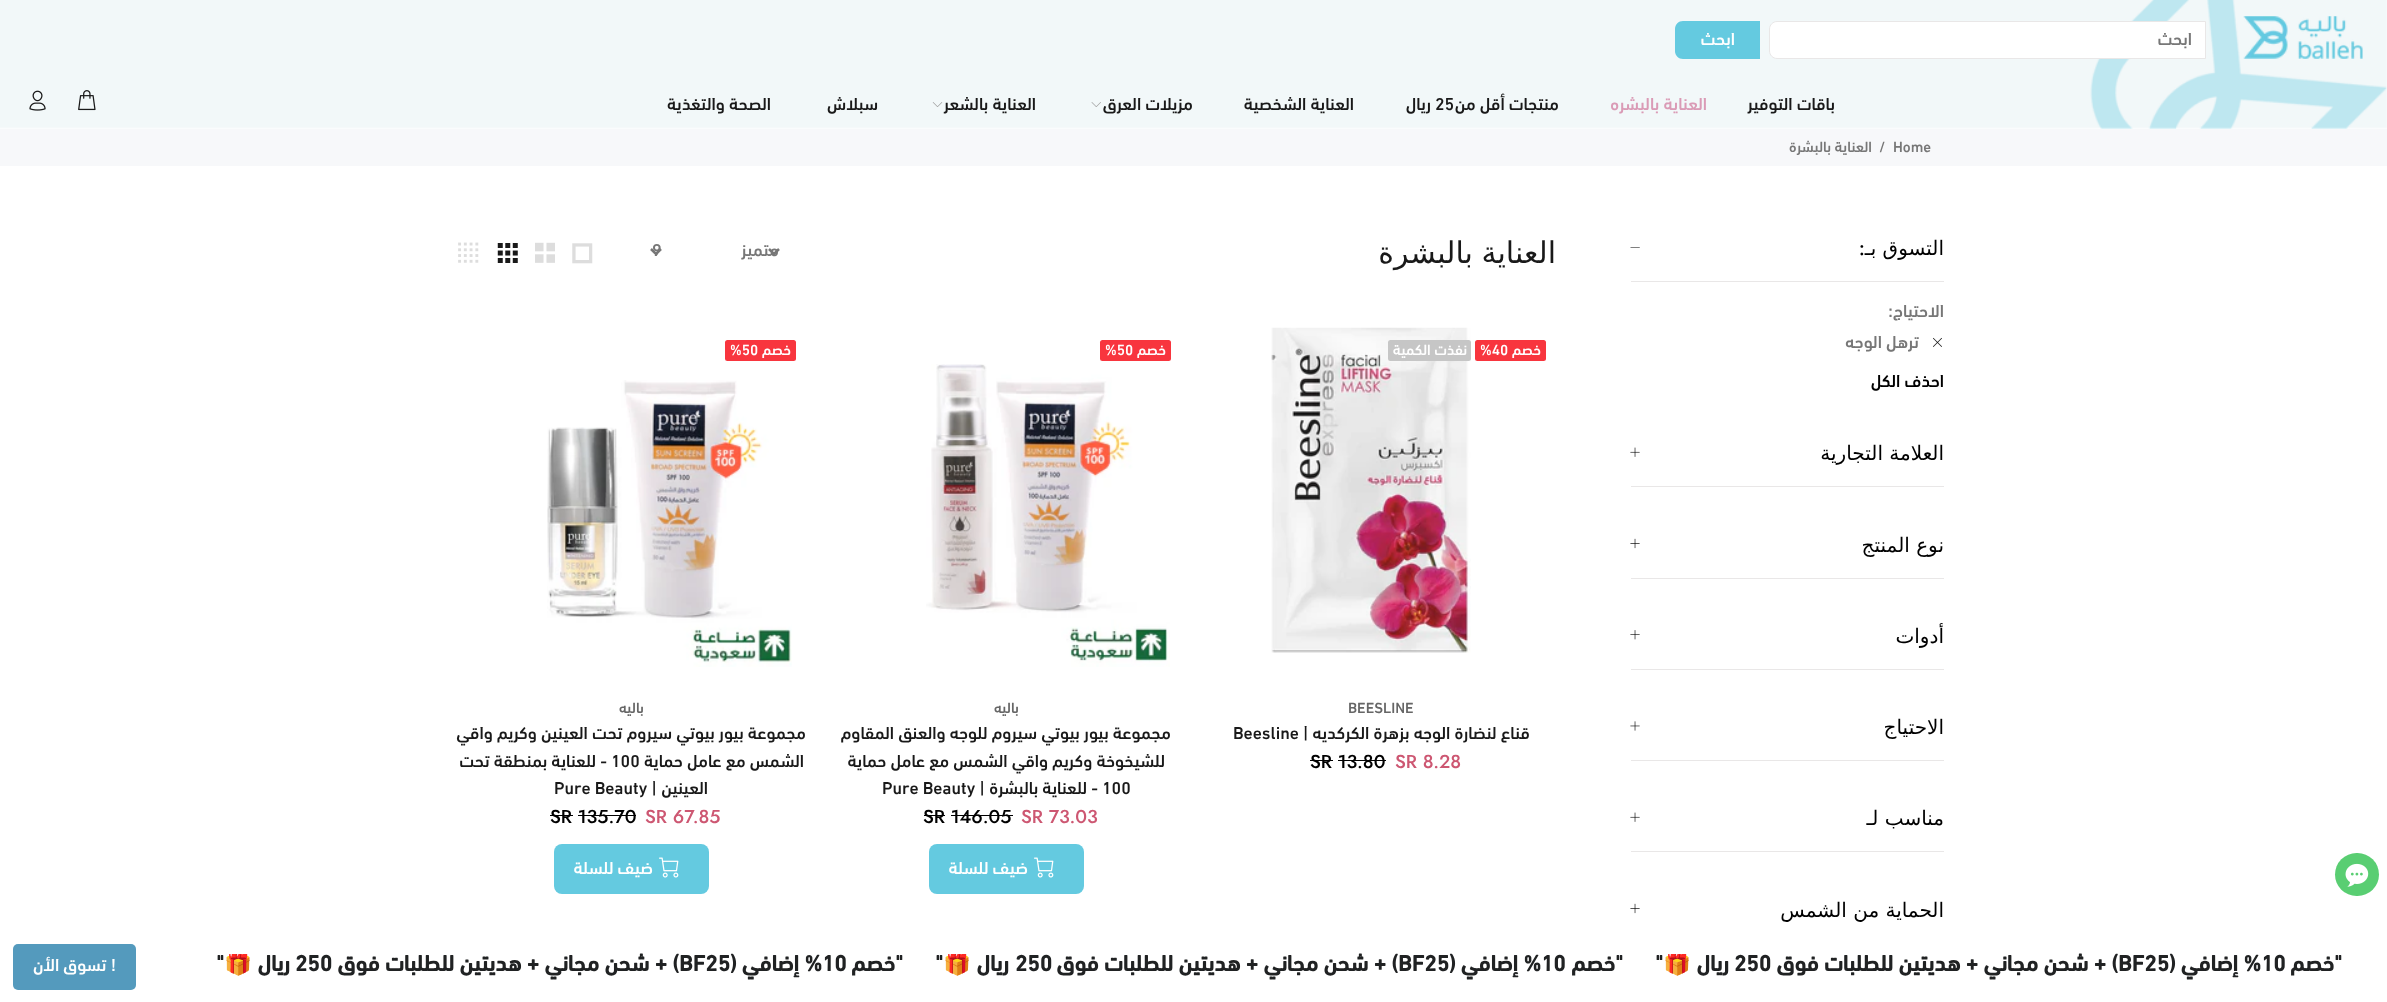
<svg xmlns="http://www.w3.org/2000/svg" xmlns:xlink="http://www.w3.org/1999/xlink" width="2387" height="1002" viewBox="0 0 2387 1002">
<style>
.cls-1{font:500 17.5px 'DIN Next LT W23';direction:rtl;fill:#777777}
.cls-2{font:500 17.5px 'DIN Next LT W23';direction:rtl;fill:#ffffff}
.cls-3{font:500 17.5px 'DIN Next LT W23';direction:rtl;fill:#191919}
.cls-4{font:500 17.5px 'DIN Next LT W23';direction:rtl;fill:#da9bb6}
.cls-5{font:500 17.5px 'DIN Next LT W23';fill:#191919}
.cls-6{font:500 15px 'DIN Next LT W23';fill:#777777}
.cls-7{font:500 15px 'DIN Next LT W23';direction:rtl;fill:#777777}
.cls-8{font:20px DejaVu Sans;direction:rtl;fill:#000000}
.cls-9{font:500 20px Jost;direction:rtl;fill:#000000}
.cls-10{font:500 17.5px 'DIN Next LT W23';direction:rtl;fill:#000000}
.cls-11{font:30px DejaVu Sans;direction:rtl;fill:#191919}
.cls-12{font:500 17.5px 'DIN Next LT W23';fill:#777777}
.cls-13{font:500 15px 'DIN Next LT W23';direction:rtl;fill:#ffffff}
.cls-14{font:500 15px 'DIN Next LT W23';fill:#ffffff}
.cls-15{font:500 15px 'DIN Next LT W23';fill:#666666}
.cls-16{font:500 18.75px Jost;fill:#cd5772}
.cls-17{font:500 18.75px Jost;fill:#000000}
.cls-18{font:500 15px 'DIN Next LT W23';direction:rtl;fill:#666666}
.cls-19{font:bold 22.5px 'DIN Next LT W23';direction:rtl;fill:#202223}
.cls-20{font:bold 22.5px 'DIN Next LT W23';fill:#202223}
.cls-21{font:bold 22.5px Noto Color Emoji;direction:rtl;fill:#202223}
</style>
<defs>
<clipPath id="clip1"><rect x="169" y="954" width="2206" height="26"/></clipPath>
</defs>
<rect width="100%" height="100%" fill="#ffffff"/>
<image xlink:href="image0.png" x="0" y="0" width="2387" height="129"/>
<image xlink:href="image1.png" x="2243" y="16" width="120" height="43"/>
<path fill="#ffffff" stroke="#e9e7e7" d="M1777 21.5H2205.5V58.5H1777C1773 58.5 1769.5 55 1769.5 51V29C1769.5 25 1773 21.5 1777 21.5Z"/>
<path fill="#64cae0" d="M1683 21H1760V59H1683C1678.5 59 1675 55.5 1675 51V29C1675 24.5 1678.5 21 1683 21Z"/>
<image xlink:href="image2.png" x="1091" y="102" width="10" height="5"/>
<image xlink:href="image3.png" x="932" y="102" width="11" height="5"/>
<image xlink:href="image4.png" x="78" y="90" width="18" height="21"/>
<image xlink:href="image5.png" x="29" y="90" width="17" height="21"/>
<rect fill="#f7f8fa" x="0" y="129" width="2387" height="37"/>
<rect fill="#59ce72" x="2335" y="853" width="44" height="43" rx="21.5"/>
<image xlink:href="image6.png" x="2345" y="863" width="24" height="24"/>
<rect fill="#e9e7e7" x="1631" y="281" width="313" height="1"/>
<path fill="#000000" d="M1639.5 247L1640 247.5H1630.5V247Z"/>
<image xlink:href="image7.png" x="1933" y="337" width="9" height="10"/>
<rect fill="#e9e7e7" x="1631" y="486" width="313" height="1"/>
<image xlink:href="image8.png" x="1630" y="447" width="10" height="10"/>
<rect fill="#e9e7e7" x="1631" y="578" width="313" height="1"/>
<image xlink:href="image9.png" x="1630" y="538" width="10" height="11"/>
<rect fill="#e9e7e7" x="1631" y="669" width="313" height="1"/>
<image xlink:href="image10.png" x="1630" y="630" width="10" height="10"/>
<rect fill="#e9e7e7" x="1631" y="760" width="313" height="1"/>
<image xlink:href="image11.png" x="1630" y="721" width="10" height="10"/>
<rect fill="#e9e7e7" x="1631" y="851" width="313" height="1"/>
<image xlink:href="image8.png" x="1630" y="812" width="10" height="10"/>
<image xlink:href="image9.png" x="1630" y="903" width="10" height="11"/>
<path fill="none" stroke="#777777" stroke-width="2.5" d="M769 249L774 254L779 249"/>
<path fill="none" stroke="#777777" stroke-width="2.5" d="M651 249L656 254L661 249"/>
<image xlink:href="image12.png" x="572" y="243" width="21" height="21"/>
<image xlink:href="image13.png" x="535" y="242" width="20" height="21"/>
<image xlink:href="image14.png" x="497" y="243" width="21" height="20"/>
<image xlink:href="image15.png" x="458" y="242" width="21" height="21"/>
<image xlink:href="image16.png" x="1271" y="327" width="200" height="326"/>
<rect fill="#f8353e" x="1475" y="340" width="71" height="21" rx="2.5"/>
<rect fill="#c6c6c6" x="1388" y="340" width="83" height="21" rx="2.5"/>
<rect fill="#000000" x="1310" y="760" width="23" height="1"/>
<rect fill="#000000" x="1338" y="760" width="48" height="1"/>
<rect fill="#f8353e" x="1100" y="340" width="71" height="21" rx="2.5"/>
<image xlink:href="image17.png" x="926" y="364" width="244" height="303"/>
<rect fill="#000000" x="924" y="815" width="21" height="1"/>
<rect fill="#000000" x="951" y="815" width="62" height="1"/>
<rect fill="#64cae0" x="929" y="844" width="155" height="50" rx="8"/>
<image xlink:href="image18.png" x="1034" y="857" width="20" height="21"/>
<rect fill="#f8353e" x="725" y="340" width="71" height="21" rx="2.5"/>
<image xlink:href="image19.png" x="547" y="380" width="245" height="287"/>
<rect fill="#000000" x="550" y="815" width="23" height="1"/>
<rect fill="#000000" x="578" y="815" width="58" height="1"/>
<rect fill="#64cae0" x="554" y="844" width="155" height="50" rx="8"/>
<image xlink:href="image18.png" x="659" y="857" width="20" height="21"/>
<rect fill="#549abd" x="13" y="944" width="123" height="46" rx="5"/>
<text class="cls-1" x="2192" y="45">ابحث</text>
<text class="cls-2" x="1735" y="45">ابحث</text>
<text class="cls-3" x="1835" y="110">باقات التوفير</text>
<text class="cls-4" x="1707" y="110">العناية بالبشره</text>
<text class="cls-3" x="1559" y="110">منتجات أقل من</text>
<text class="cls-5" x="1435" y="110">25</text>
<text class="cls-3" x="1431" y="110">ريال</text>
<text class="cls-3" x="1354" y="110">العناية الشخصية</text>
<text class="cls-3" x="1193" y="110">مزيلات العرق</text>
<text class="cls-3" x="1036" y="110">العناية بالشعر</text>
<text class="cls-3" x="878" y="110">سبلاش</text>
<text class="cls-3" x="771" y="110">الصحة والتغذية</text>
<text class="cls-6" x="1893" y="152">Home</text>
<text class="cls-6" x="1879" y="152">/</text>
<text class="cls-7" x="1872" y="152">العناية بالبشرة</text>
<text class="cls-8" x="1944" y="255">التسوق بـ</text>
<text class="cls-9" x="1865" y="255">:</text>
<text class="cls-1" x="1944" y="317">الاحتياج:</text>
<text class="cls-1" x="1919" y="348">ترهل الوجه</text>
<text class="cls-10" x="1944" y="387">احذف الكل</text>
<text class="cls-8" x="1944" y="460">العلامة التجارية</text>
<text class="cls-8" x="1944" y="552">نوع المنتج</text>
<text class="cls-8" x="1944" y="643">أدوات</text>
<text class="cls-8" x="1944" y="734">الاحتياج</text>
<text class="cls-8" x="1944" y="825">مناسب لـ</text>
<text class="cls-8" x="1944" y="917">الحماية من الشمس</text>
<text class="cls-11" x="1556" y="263" word-spacing="-1">العناية بالبشرة</text>
<text class="cls-1" x="779" y="256">متميز</text>
<text class="cls-12" x="652" y="256">9</text>
<text class="cls-13" x="1541" y="355">خصم</text>
<text class="cls-14" x="1480" y="355">%40</text>
<text class="cls-13" x="1467" y="355">نفذت الكمية</text>
<text class="cls-15" x="1348" y="713">BEESLINE</text>
<text class="cls-3" x="1530" y="739">قناع لنضارة الوجه بزهرة الكركديه |</text>
<text class="cls-5" x="1233" y="739">Beesline</text>
<text class="cls-16" x="1395" y="768">SR 8.28</text>
<text class="cls-17" x="1310" y="768">SR 13.80</text>
<text class="cls-13" x="1166" y="355">خصم</text>
<text class="cls-14" x="1105" y="355">%50</text>
<text class="cls-18" x="1019" y="713">باليه</text>
<text class="cls-3" x="1171" y="739">مجموعة بيور بيوتي سيروم للوجه والعنق المقاوم</text>
<text class="cls-3" x="1165" y="767">للشيخوخة وكريم واقي الشمس مع عامل حماية</text>
<text class="cls-5" x="1102" y="794">100</text>
<text class="cls-3" x="1098" y="794">- للعناية بالبشرة |</text>
<text class="cls-5" x="882" y="794">Pure Beauty</text>
<text class="cls-16" x="1021" y="823">SR 73.03</text>
<text class="cls-17" x="923" y="823">SR 146.05</text>
<text class="cls-2" x="1028" y="874">ضيف للسلة</text>
<text class="cls-13" x="791" y="355">خصم</text>
<text class="cls-14" x="730" y="355">%50</text>
<text class="cls-18" x="644" y="713">باليه</text>
<text class="cls-3" x="806" y="739">مجموعة بيور بيوتي سيروم تحت العينين وكريم واقي</text>
<text class="cls-3" x="804" y="767">الشمس مع عامل حماية</text>
<text class="cls-5" x="611" y="767">100</text>
<text class="cls-3" x="607" y="767">- للعناية بمنطقة تحت</text>
<text class="cls-3" x="708" y="794">العينين |</text>
<text class="cls-5" x="554" y="794">Pure Beauty</text>
<text class="cls-16" x="645" y="823">SR 67.85</text>
<text class="cls-17" x="550" y="823">SR 135.70</text>
<text class="cls-2" x="653" y="874">ضيف للسلة</text>
<text class="cls-19" x="2342" y="971">"خصم</text>
<text class="cls-20" x="2261" y="971">10</text>
<text class="cls-19" x="2261" y="971">% إضافي (</text>
<text class="cls-20" x="2118" y="971">BF25</text>
<text class="cls-19" x="2118" y="971">) + شحن مجاني + هديتين للطلبات فوق</text>
<text class="cls-20" x="1734" y="971">250</text>
<text class="cls-19" x="1729" y="971">ريال</text>
<g clip-path="url(#clip1)">
<text class="cls-21" x="1691" y="971">🎁</text>
</g>
<text class="cls-19" x="1663" y="971">"</text>
<text class="cls-19" x="1623" y="971">"خصم</text>
<text class="cls-20" x="1541" y="971">10</text>
<text class="cls-19" x="1541" y="971">% إضافي (</text>
<text class="cls-20" x="1398" y="971">BF25</text>
<text class="cls-19" x="1398" y="971">) + شحن مجاني + هديتين للطلبات فوق</text>
<text class="cls-20" x="1015" y="971">250</text>
<text class="cls-19" x="1009" y="971">ريال</text>
<g clip-path="url(#clip1)">
<text class="cls-21" x="971" y="971">🎁</text>
</g>
<text class="cls-19" x="943" y="971">"</text>
<text class="cls-19" x="903" y="971">"خصم</text>
<text class="cls-20" x="822" y="971">10</text>
<text class="cls-19" x="822" y="971">% إضافي (</text>
<text class="cls-20" x="679" y="971">BF25</text>
<text class="cls-19" x="679" y="971">) + شحن مجاني + هديتين للطلبات فوق</text>
<text class="cls-20" x="295" y="971">250</text>
<text class="cls-19" x="290" y="971">ريال</text>
<g clip-path="url(#clip1)">
<text class="cls-21" x="252" y="971">🎁</text>
</g>
<text class="cls-19" x="224" y="971">"</text>
<text class="cls-2" x="116" y="971">! تسوق الأن</text>
</svg>
